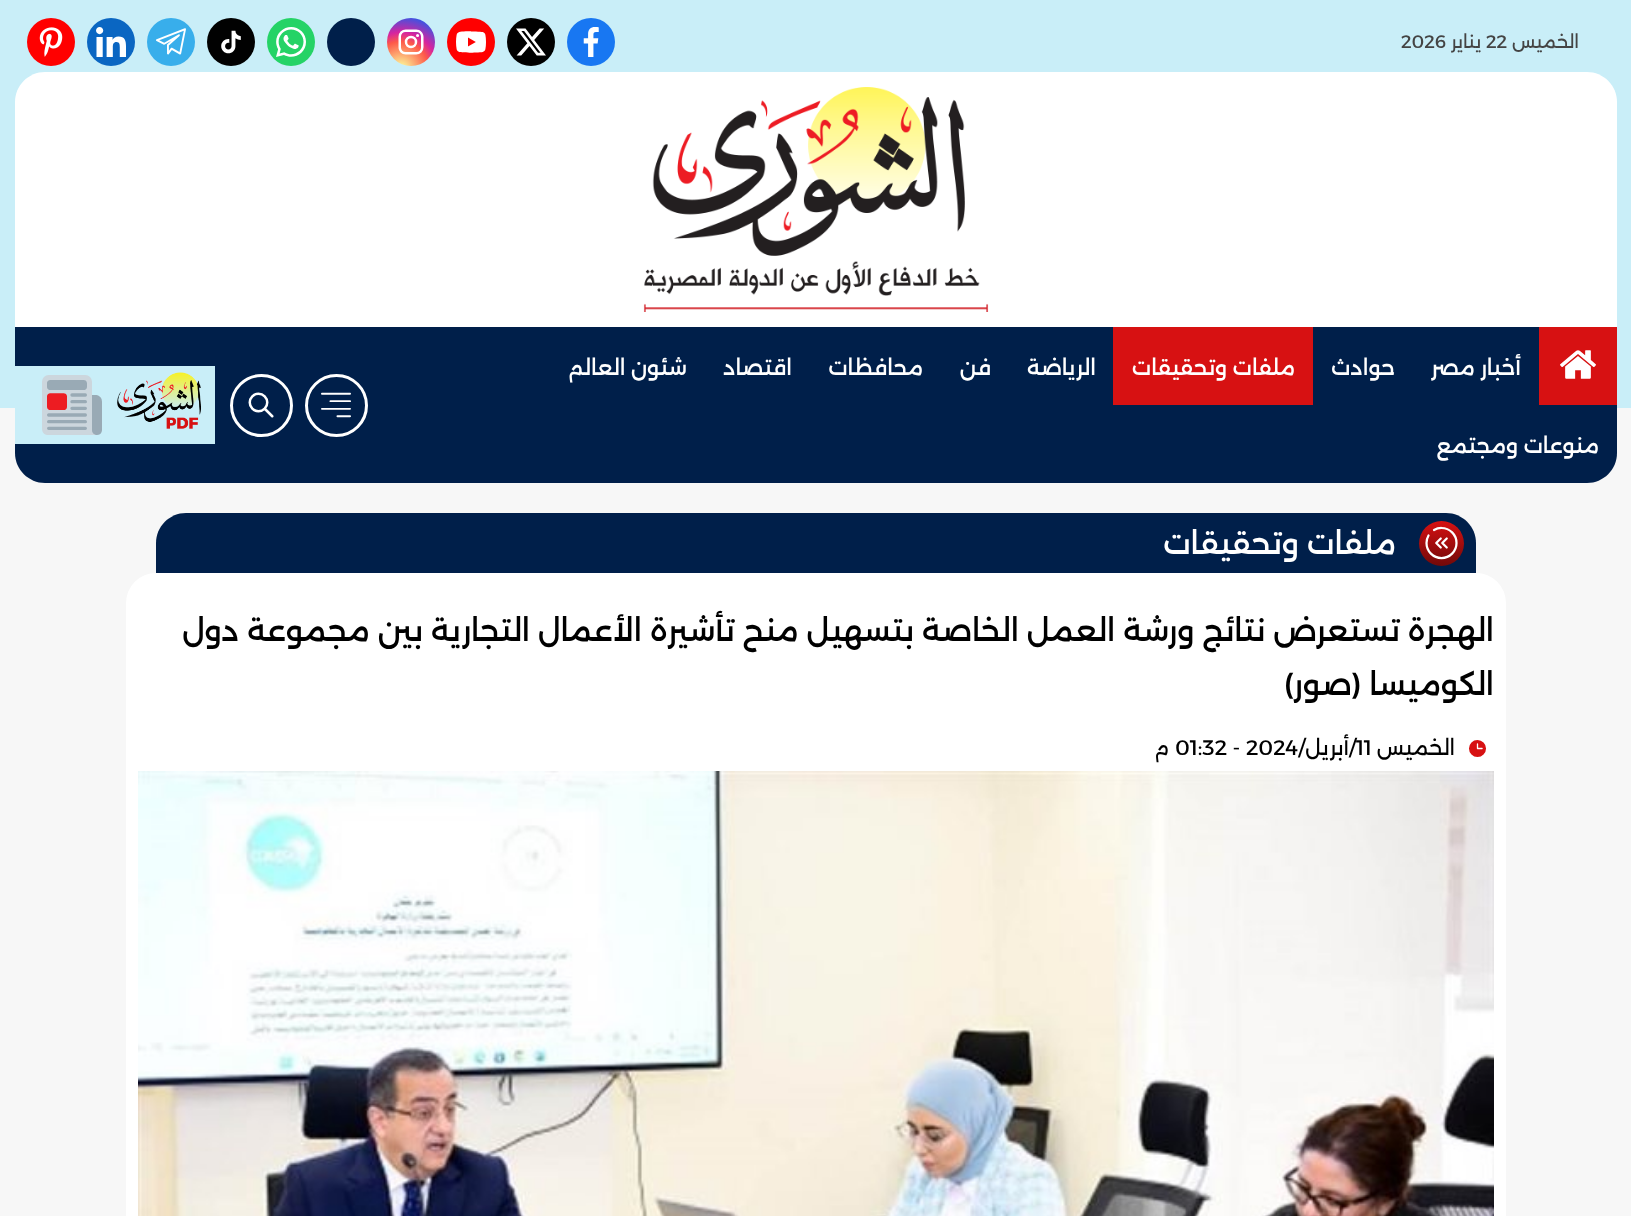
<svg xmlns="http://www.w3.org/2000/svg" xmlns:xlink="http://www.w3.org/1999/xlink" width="1631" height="1216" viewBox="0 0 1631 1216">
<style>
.cls-1{font:18px Alexandria;direction:rtl;fill:#444444}
.cls-2{font:18px Alexandria;fill:#444444}
.cls-3{font:500 21px Alexandria;direction:rtl;fill:#ffffff}
.cls-4{font:500 30px Alexandria;direction:rtl;fill:#ffffff}
.cls-5{font:500 30px Alexandria;direction:rtl;fill:#000000}
.cls-6{font:21px Alexandria;direction:rtl;fill:#000000}
.cls-7{font:21px Alexandria;fill:#000000}
</style>
<defs>
<radialGradient id="g1" gradientUnits="userSpaceOnUse" cx="401" cy="69" r="61"><stop offset="0" stop-color="#fdf497"/><stop offset="0.05" stop-color="#fdf497"/><stop offset="0.45" stop-color="#fd5949"/><stop offset="0.6" stop-color="#d6249f"/><stop offset="0.9" stop-color="#285aeb"/></radialGradient>
<linearGradient id="g2" gradientUnits="userSpaceOnUse" x1="1442" y1="521" x2="1442" y2="566"><stop offset="0" stop-color="#d71112"/><stop offset="1" stop-color="#710909"/></linearGradient>
</defs>
<rect width="100%" height="100%" fill="#f7f7f7"/>
<rect fill="#c9eef8" x="0" y="0" width="1631" height="408"/>
<circle fill="#1877f2" cx="591" cy="42" r="24"/>
<image xlink:href="image0.png" x="583" y="27" width="16" height="30"/>
<circle fill="#000000" cx="531" cy="42" r="24"/>
<image xlink:href="image1.png" x="516" y="28" width="30" height="28"/>
<circle fill="#ff0000" cx="471" cy="42" r="24"/>
<image xlink:href="image2.png" x="456" y="31" width="30" height="22"/>
<circle fill="url(#g1)" cx="411" cy="42" r="24"/>
<image xlink:href="image3.png" x="398" y="29" width="26" height="26"/>
<circle fill="#001f4a" cx="351" cy="42" r="24"/>
<circle fill="#25d366" cx="291" cy="42" r="24"/>
<image xlink:href="image4.png" x="276" y="27" width="30" height="30"/>
<circle fill="#010101" cx="231" cy="42" r="24"/>
<image xlink:href="image5.png" x="221" y="30" width="20" height="24"/>
<circle fill="#38aeeb" cx="171" cy="42" r="24"/>
<image xlink:href="image6.png" x="156" y="28" width="30" height="27"/>
<circle fill="#0a66c2" cx="111" cy="42" r="24"/>
<image xlink:href="image7.png" x="96" y="27" width="30" height="30"/>
<circle fill="#ff0000" cx="51" cy="42" r="24"/>
<image xlink:href="image8.png" x="39" y="27" width="24" height="30"/>
<path fill="#ffffff" d="M45 72H1587C1603.5 72 1617 85.5 1617 102V327H15V102C15 85.5 28.5 72 45 72Z"/>
<image xlink:href="image9.png" x="643" y="87" width="346" height="225"/>
<path fill="#001f4a" d="M15 327H1617V453C1617 469.5 1603.5 483 1587 483H45C28.5 483 15 469.5 15 453Z"/>
<rect fill="#d71112" x="1539" y="327" width="78" height="78"/>
<image xlink:href="image10.png" x="1560" y="350" width="36" height="29"/>
<rect fill="#d71112" x="1113" y="327" width="200" height="78"/>
<circle fill="none" stroke="#ffffff" stroke-width="3" cx="336.5" cy="405.5" r="30"/>
<image xlink:href="image11.png" x="321" y="392" width="30" height="26"/>
<circle fill="none" stroke="#ffffff" stroke-width="3" cx="261.5" cy="405.5" r="30"/>
<image xlink:href="image12.png" x="248" y="392" width="26" height="26"/>
<rect fill="#c9eef8" x="15" y="366" width="200" height="78"/>
<image xlink:href="image13.png" x="117" y="372" width="84" height="57"/>
<image xlink:href="image14.png" x="42" y="375" width="60" height="60"/>
<path fill="#001f4a" d="M186 513H1446C1462.5 513 1476 526.5 1476 543V573H156V543C156 526.5 169.5 513 186 513Z"/>
<circle fill="url(#g2)" cx="1441.5" cy="543.5" r="22.5"/>
<image xlink:href="image15.png" x="1425" y="526" width="33" height="34"/>
<rect fill="#ffffff" x="126" y="573" width="1380" height="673" rx="30"/>
<image xlink:href="image16.png" x="1469" y="740" width="17" height="17"/>
<image xlink:href="image17.png" x="138" y="771" width="1356" height="445"/>
<text class="cls-1" x="1579" y="48">الخميس</text>
<text class="cls-2" x="1486" y="48">22</text>
<text class="cls-1" x="1481" y="48">يناير</text>
<text class="cls-2" x="1401" y="48">2026</text>
<text class="cls-3" x="1521" y="375">أخبار مصر</text>
<text class="cls-3" x="1395" y="375">حوادث</text>
<text class="cls-3" x="1295" y="375">ملفات وتحقيقات</text>
<text class="cls-3" x="1096" y="375">الرياضة</text>
<text class="cls-3" x="991" y="375">فن</text>
<text class="cls-3" x="923" y="375">محافظات</text>
<text class="cls-3" x="792" y="375">اقتصاد</text>
<text class="cls-3" x="687" y="375">شئون العالم</text>
<text class="cls-3" x="1599" y="453">منوعات ومجتمع</text>
<text class="cls-4" x="1396" y="554">ملفات وتحقيقات</text>
<text class="cls-5"><tspan x="1494" y="641">الهجرة تستعرض نتائج ورشة العمل الخاصة بتسهيل منح تأشيرة الأعمال التجارية بين مجموعة دول</tspan><tspan x="1494" y="695">الكوميسا (صور)</tspan></text>
<text class="cls-6" x="1455" y="755">الخميس</text>
<text class="cls-7" x="1175" y="755">01:32 - 2024</text>
<text class="cls-6" x="1356" y="755">/أبريل/</text>
<text class="cls-7" x="1356" y="755">11</text>
<text class="cls-6" x="1169" y="755">م</text>
</svg>
